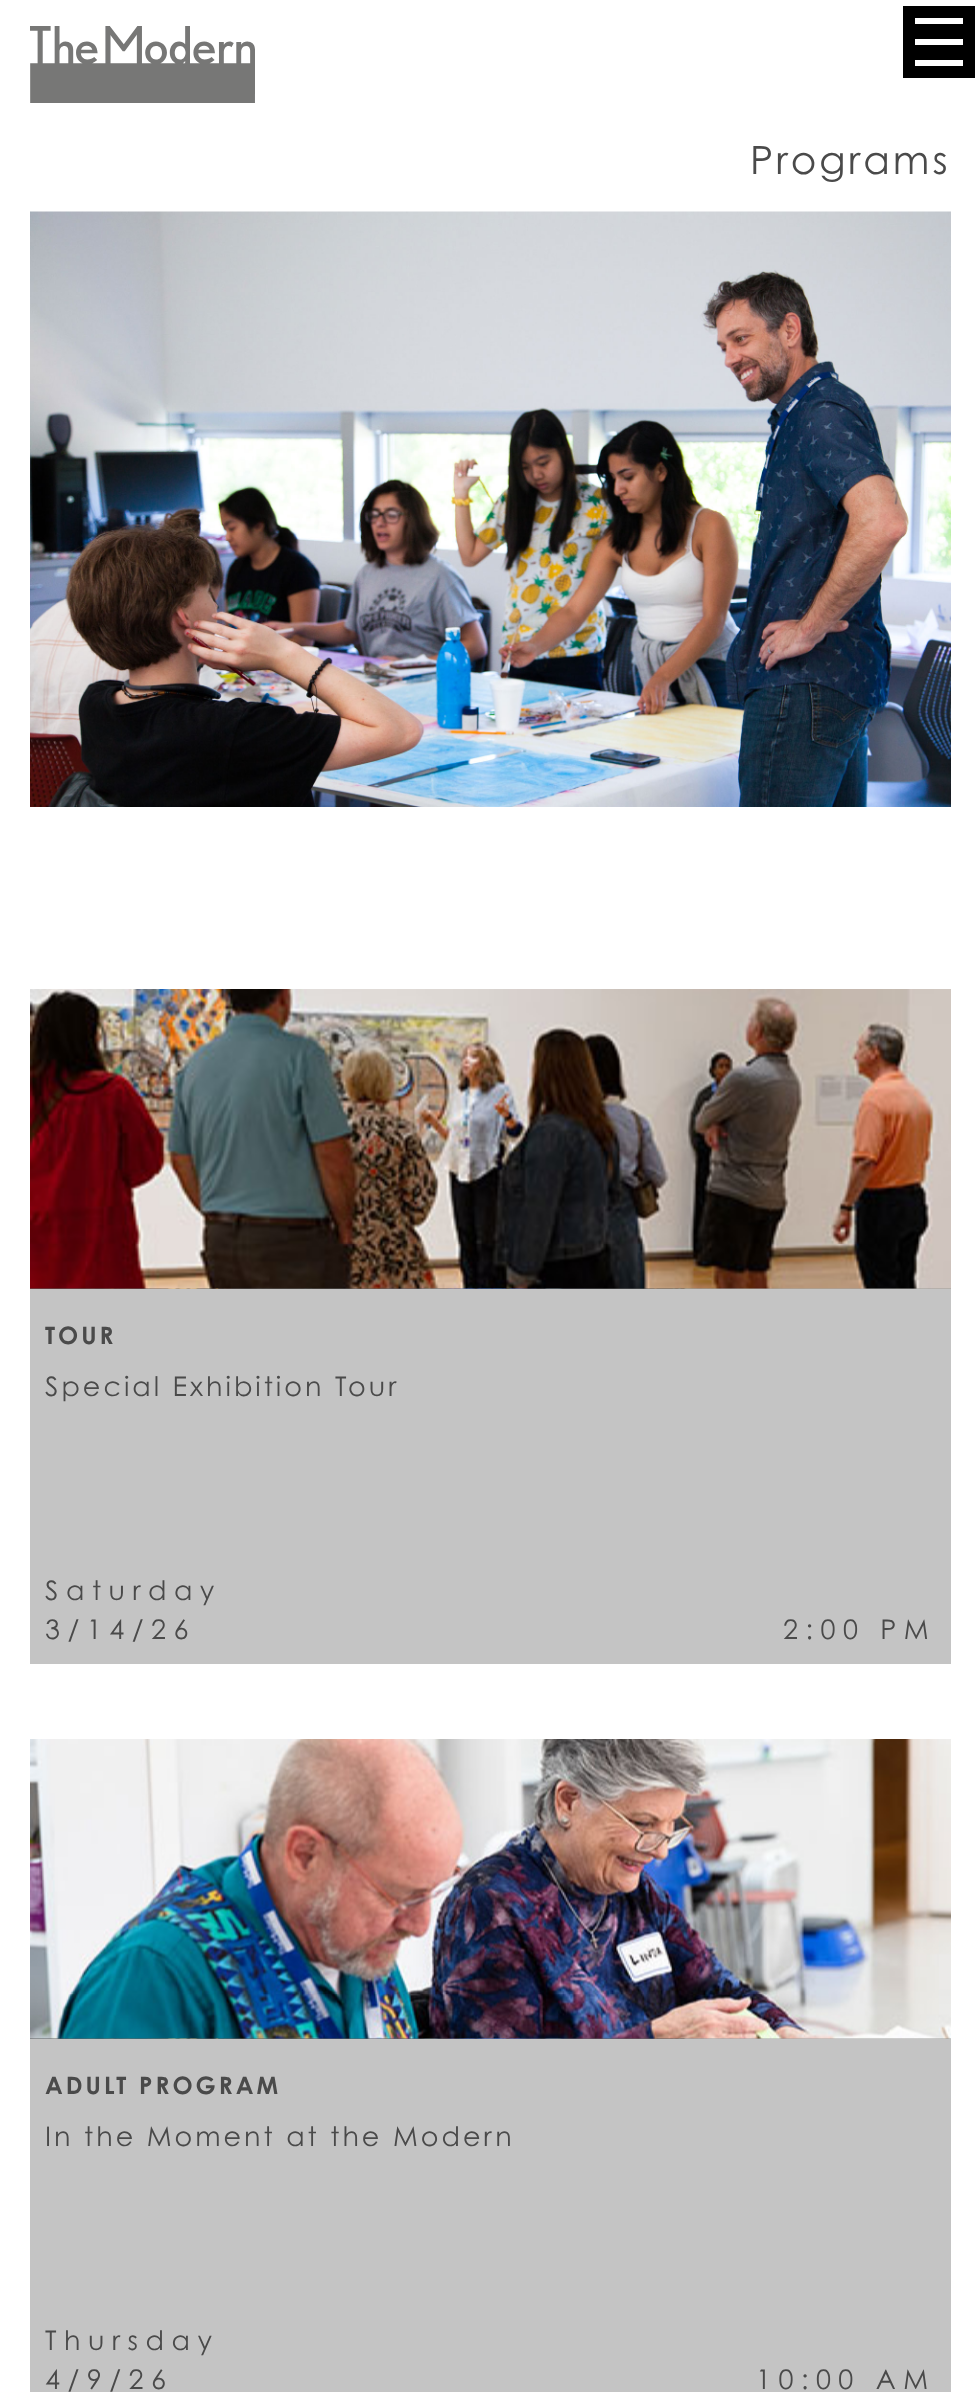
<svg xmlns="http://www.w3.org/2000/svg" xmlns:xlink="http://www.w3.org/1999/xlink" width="980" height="2392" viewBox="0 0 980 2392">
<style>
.cls-1{font:39px Century Gothic;letter-spacing:3px;fill:#4a4a4a}
.cls-2{font:bold 24px Century Gothic;letter-spacing:3px;fill:#4a4a4a}
.cls-3{font:27px Century Gothic;letter-spacing:3px;fill:#4a4a4a}
.cls-4{font:27px Century Gothic;letter-spacing:7.5px;fill:#4a4a4a}
</style>
<rect width="100%" height="100%" fill="#ffffff"/>
<image xlink:href="image0.png" x="30" y="26" width="225" height="77"/>
<rect fill="#000000" x="903" y="6" width="72" height="72"/>
<rect fill="#ffffff" x="915" y="18" width="48" height="6"/>
<rect fill="#ffffff" x="915" y="39" width="48" height="6"/>
<rect fill="#ffffff" x="915" y="60" width="48" height="6"/>
<image xlink:href="image1.png" x="30" y="211" width="921" height="596"/>
<rect fill="#c4c4c4" x="30" y="1288" width="921" height="376"/>
<image xlink:href="image3.png" x="30" y="1288" width="921" height="1"/>
<image xlink:href="image2.png" x="30" y="989" width="921" height="300"/>
<rect fill="#c4c4c4" x="30" y="2038" width="921" height="354"/>
<image xlink:href="image3.png" x="30" y="2038" width="921" height="1"/>
<image xlink:href="image4.png" x="30" y="1739" width="921" height="300"/>
<text class="cls-1" x="750" y="174">Programs</text>
<text class="cls-2" x="45" y="1344">TOUR</text>
<text class="cls-3" x="45" y="1396">Special Exhibition Tour</text>
<text class="cls-4"><tspan x="45" y="1600">Saturday</tspan><tspan x="45" y="1639">3/14/26</tspan></text>
<text class="cls-4" x="783" y="1639">2:00 PM</text>
<text class="cls-2" x="45" y="2094">ADULT PROGRAM</text>
<text class="cls-3" x="45" y="2146">In the Moment at the Modern</text>
<text class="cls-4"><tspan x="45" y="2350">Thursday</tspan><tspan x="45" y="2389">4/9/26</tspan></text>
<text class="cls-4" x="756" y="2389">10:00 AM</text>
</svg>
